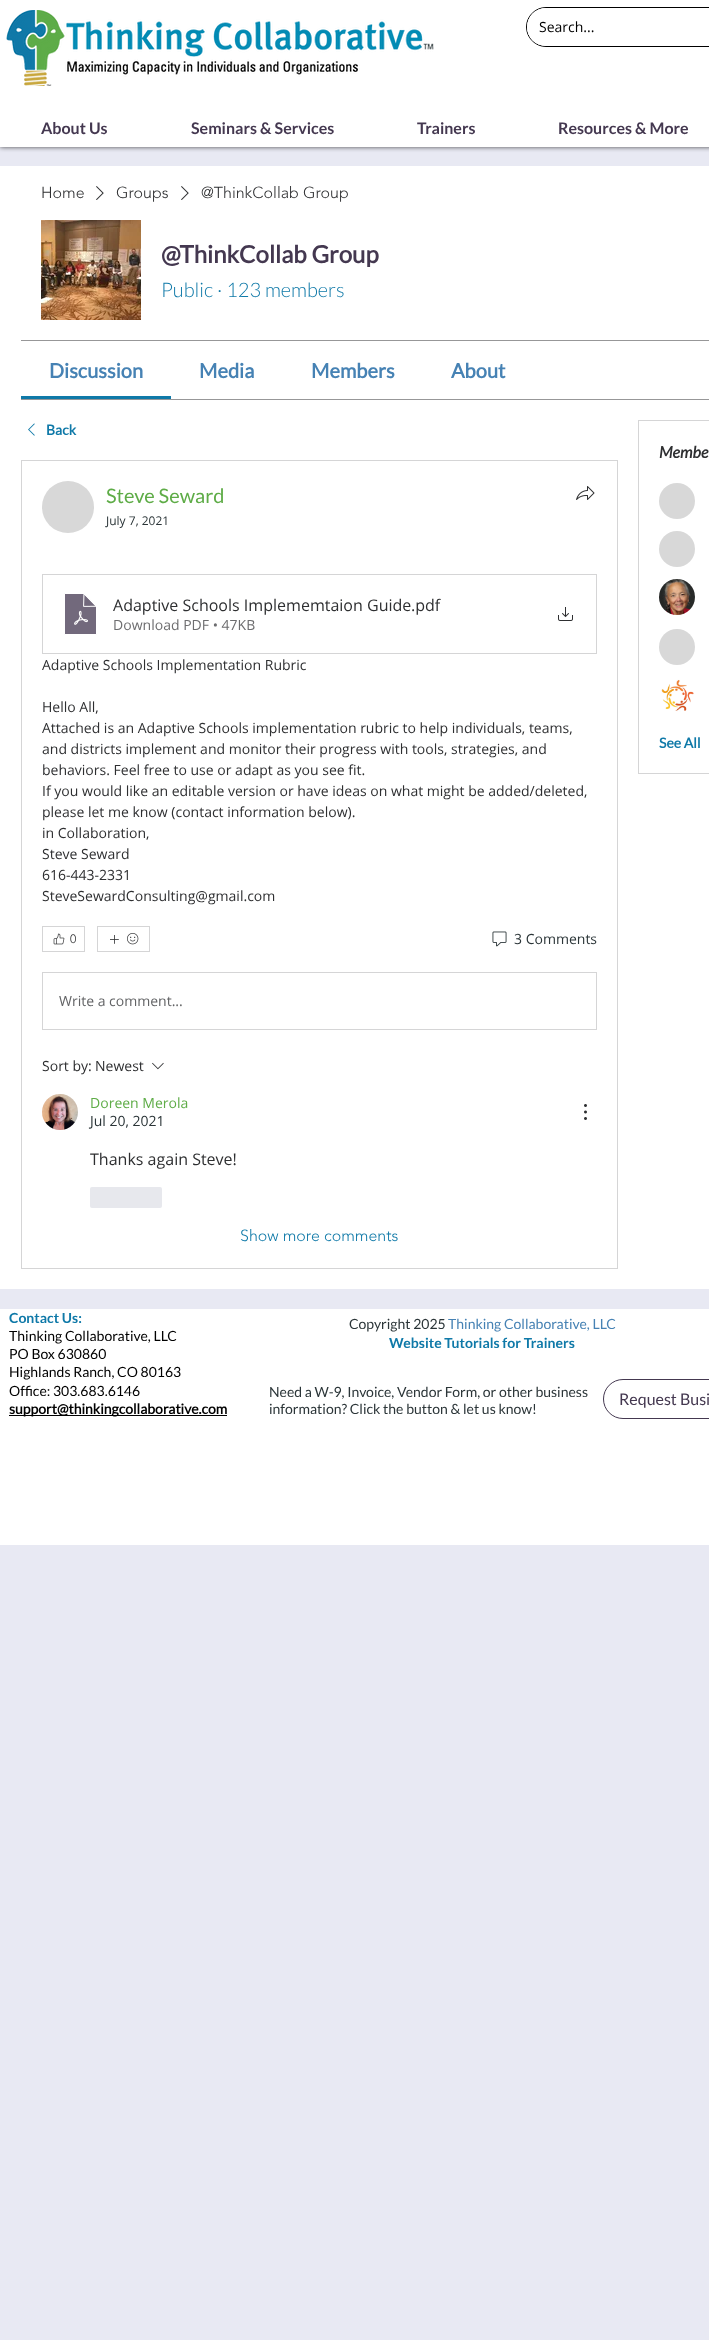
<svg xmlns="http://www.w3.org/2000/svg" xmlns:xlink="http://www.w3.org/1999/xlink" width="709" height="2340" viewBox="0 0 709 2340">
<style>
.cls-1{font:14px Open Sans;fill:#000000}
.cls-2{font:bold 16px 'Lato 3';fill:#443850}
.cls-3{font:300 16px 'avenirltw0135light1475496';fill:#2e2f31}
.cls-4{font:bold 24px Lato;fill:#443850}
.cls-5{font:300 20px Lato;fill:#0f79a8}
.cls-6{font:bold 20px Lato;fill:#4682b4}
.cls-7{font:bold 14px Lato;fill:#0f79a8}
.cls-8{font:20px Lato;fill:#5eac47}
.cls-9{font:12px Open Sans;fill:#2b3538}
.cls-10{font:16px Open Sans;fill:#2e2f31}
.cls-11{font:14px Open Sans;fill:#6d6d6f}
.cls-12{font:14px Open Sans;fill:#2e2f31}
.cls-13{font:300 12px 'avenirltw0135light1475496';fill:#2e2f31}
.cls-14{font:14px Open Sans;fill:#2b3538}
.cls-15{font:14px Open Sans;fill:#626365}
.cls-16{font:14px Open Sans;fill:#5eac47}
.cls-17{font:300 16px 'avenirltw0135light1475496';fill:#0f79a8}
.cls-18{font:italic bold 16px Lato;fill:#2e2f31}
.cls-19{font:bold 14px 'Lato 3';fill:#0f79a8}
.cls-20{font:14px Lato;fill:#000000}
.cls-21{font:bold 14px Lato;fill:#000000}
.cls-22{font:14px Lato;fill:#2b3538}
.cls-23{font:14px Lato;fill:#4682b4}
.cls-24{font:bold 14px 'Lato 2';fill:#0f79a8}
.cls-25{font:16px Lato;fill:#443850}
</style>
<rect width="100%" height="100%" fill="#e8e9f3"/>
<rect fill="#000000" fill-opacity="0.7" filter="blur(2.5px)" x="0" y="0" width="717" height="147"/>
<rect fill="#ffffff" x="0" y="0" width="709" height="147"/>
<image xlink:href="image0.png" x="6" y="10" width="428" height="76"/>
<rect fill="none" stroke="#000000" x="526.5" y="7.5" width="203" height="39" rx="19.5"/>
<rect fill="#ffffff" x="527" y="8" width="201" height="38" rx="19"/>
<rect fill="#ffffff" x="0" y="166" width="709" height="1123"/>
<image xlink:href="image1.png" x="96" y="186" width="8" height="14"/>
<image xlink:href="image1.png" x="181" y="186" width="8" height="14"/>
<image xlink:href="image2.png" x="41" y="220" width="100" height="100"/>
<rect fill="#979798" x="21" y="340" width="688" height="1"/>
<rect fill="#979798" x="21" y="399" width="688" height="1"/>
<rect fill="#0f79a8" x="21" y="396" width="150" height="3"/>
<image xlink:href="image3.png" x="28" y="423" width="7" height="13"/>
<rect fill="none" stroke="#d5d5d6" x="21.5" y="460.5" width="596" height="808"/>
<circle fill="#d8d8d8" cx="68" cy="507" r="26"/>
<image xlink:href="image4.png" x="576" y="486" width="19" height="14"/>
<rect fill="none" stroke="#d5d5d6" x="42.5" y="574.5" width="554" height="79"/>
<image xlink:href="image5.png" x="64" y="593" width="33" height="42"/>
<image xlink:href="image6.png" x="558" y="607" width="15" height="14"/>
<rect fill="none" stroke="#d5d5d6" x="42.5" y="926.5" width="42" height="25"/>
<image xlink:href="image7.png" x="53" y="933" width="12" height="12"/>
<rect fill="none" stroke="#d5d5d6" x="97.5" y="926.5" width="52" height="25"/>
<image xlink:href="image8.png" x="110" y="935" width="9" height="9"/>
<image xlink:href="image9.png" x="127" y="933" width="12" height="12"/>
<image xlink:href="image10.png" x="492" y="931" width="15" height="16"/>
<rect fill="none" stroke="#d5d5d6" x="42.5" y="972.5" width="554" height="57"/>
<image xlink:href="image11.png" x="152" y="1062" width="12" height="8"/>
<image xlink:href="image12.png" x="42" y="1094" width="36" height="36"/>
<image xlink:href="image13.png" x="584" y="1104" width="3" height="16"/>
<rect fill="#e7e8ed" x="90" y="1187" width="72" height="21" rx="2"/>
<rect fill="none" stroke="#d5d5d6" x="638.5" y="420.5" width="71" height="353"/>
<circle fill="#d8d8d8" cx="677" cy="501" r="18"/>
<circle fill="#d8d8d8" cx="677" cy="549" r="18"/>
<image xlink:href="image14.png" x="659" y="579" width="36" height="36"/>
<circle fill="#d8d8d8" cx="677" cy="647" r="18"/>
<image xlink:href="image15.png" x="659" y="677" width="36" height="36"/>
<rect fill="#ffffff" x="0" y="1309" width="709" height="236"/>
<rect fill="#000000" x="9" y="1415" width="218" height="1"/>
<rect fill="none" stroke="#443850" x="603.5" y="1379.5" width="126" height="39" rx="19.5"/>
<text class="cls-1" x="539" y="32">Search...</text>
<text class="cls-2" x="41" y="134">About Us</text>
<text class="cls-2" x="191" y="134">Seminars &amp; Services</text>
<text class="cls-2" x="417" y="134">Trainers</text>
<text class="cls-2" x="558" y="134">Resources &amp; More</text>
<text class="cls-3" x="41" y="198">Home</text>
<text class="cls-3" x="116" y="198">Groups</text>
<text class="cls-3" x="201" y="198">@ThinkCollab Group</text>
<text class="cls-4" x="161" y="263">@ThinkCollab Group</text>
<text class="cls-5" x="161" y="297">Public · 123 members</text>
<text class="cls-6" x="49" y="378">Discussion</text>
<text class="cls-6" x="199" y="378">Media</text>
<text class="cls-6" x="311" y="378">Members</text>
<text class="cls-6" x="451" y="378">About</text>
<text class="cls-7" x="46" y="435">Back</text>
<text class="cls-8" x="106" y="503">Steve Seward</text>
<text class="cls-9" x="106" y="525">July 7, 2021</text>
<text class="cls-10" x="113" y="611">Adaptive Schools Implememtaion Guide</text>
<text class="cls-10" x="411" y="611">.pdf</text>
<text class="cls-11" x="113" y="630">Download PDF • 47KB</text>
<text class="cls-12" x="42" y="670">Adaptive Schools Implementation Rubric</text>
<text class="cls-12"><tspan x="42" y="712">Hello All,</tspan><tspan x="42" y="733">Attached is an Adaptive Schools implementation rubric to help individuals, teams,</tspan><tspan x="42" y="754">and districts implement and monitor their progress with tools, strategies, and</tspan><tspan x="42" y="775">behaviors. Feel free to use or adapt as you see fit.</tspan><tspan x="42" y="796">If you would like an editable version or have ideas on what might be added/deleted,</tspan><tspan x="42" y="817">please let me know (contact information below).</tspan><tspan x="42" y="838">in Collaboration,</tspan><tspan x="42" y="859">Steve Seward</tspan><tspan x="42" y="880">616-443-2331</tspan><tspan x="42" y="901">SteveSewardConsulting@gmail.com</tspan></text>
<text class="cls-13" x="70" y="943">0</text>
<text class="cls-14" x="514" y="944">3 Comments</text>
<text class="cls-15" x="59" y="1006">Write a comment...</text>
<text class="cls-12" x="42" y="1071">Sort by:</text>
<text class="cls-12" x="95" y="1071">Newest</text>
<text class="cls-16" x="90" y="1108">Doreen Merola</text>
<text class="cls-14" x="90" y="1126">Jul 20, 2021</text>
<text class="cls-10" x="90" y="1165">Thanks again Steve!</text>
<text class="cls-17" x="240" y="1241">Show more comments</text>
<text class="cls-18" x="659" y="458">Membe</text>
<text class="cls-7" x="659" y="748">See All</text>
<text class="cls-19" x="9" y="1323">Contact Us:</text>
<text class="cls-20"><tspan x="9" y="1341">Thinking Collaborative, LLC</tspan><tspan x="9" y="1359">PO Box 630860</tspan><tspan x="9" y="1377">Highlands Ranch, CO 80163</tspan><tspan x="9" y="1396">Office: 303.683.6146</tspan></text>
<text class="cls-21" x="9" y="1414">support@thinkingcollaborative.com</text>
<text class="cls-22" x="349" y="1329">Copyright 2025</text>
<text class="cls-23" x="448" y="1329">Thinking Collaborative, LLC</text>
<text class="cls-24" x="389" y="1348">Website Tutorials for Trainers</text>
<text class="cls-22"><tspan x="269" y="1397">Need a W-9, Invoice, Vendor Form, or other business</tspan><tspan x="269" y="1414">information? Click the button &amp; let us know!</tspan></text>
<text class="cls-25" x="619" y="1405">Request Busi</text>
</svg>
